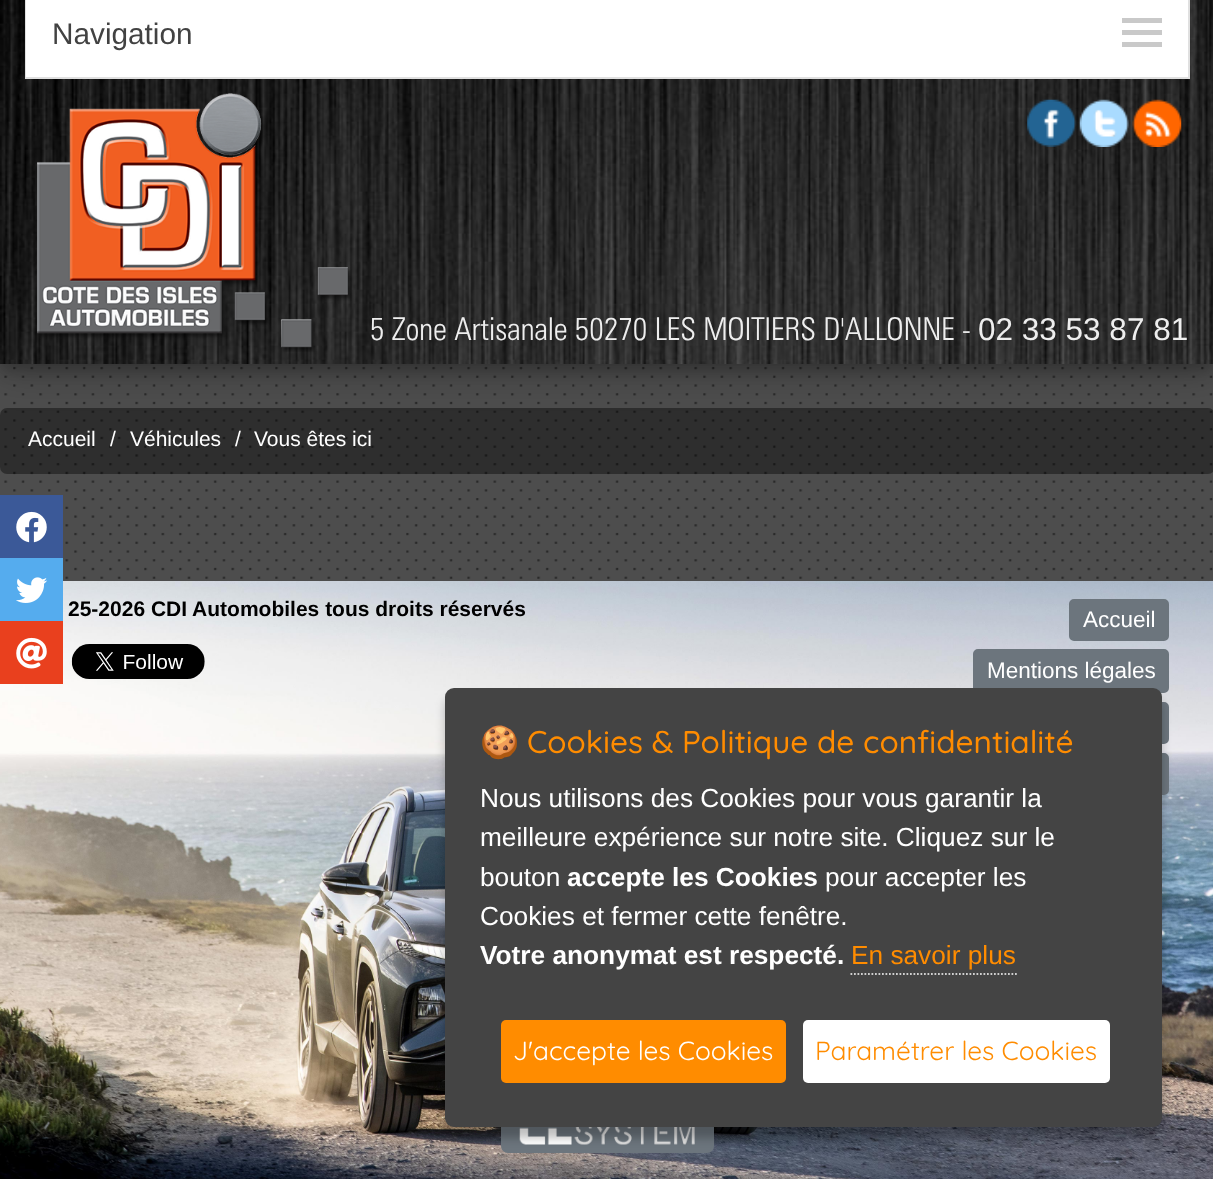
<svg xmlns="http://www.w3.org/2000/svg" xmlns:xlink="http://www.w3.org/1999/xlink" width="1213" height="1179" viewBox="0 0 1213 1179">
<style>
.cls-1{font:29.75px Liberation Sans;fill:#424242}
.cls-2{font:300 31.5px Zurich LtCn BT;fill:#eeeeee}
.cls-3{font:31.5px Liberation Sans;fill:#eeeeee}
.cls-4{font:21px Liberation Sans;fill:#ffffff}
.cls-5{font:bold 21px Liberation Sans;fill:#000000}
.cls-6{font:22.5px Liberation Sans;fill:#ffffff}
.cls-7{font:31.5px Noto Color Emoji;fill:#ff8c00}
.cls-8{font:500 31.5px Quicksand;fill:#ff8c00}
.cls-9{font:26.25px Liberation Sans;fill:#ffffff}
.cls-10{font:bold 26.25px Liberation Sans;fill:#ffffff}
.cls-11{font:26.25px Liberation Sans;fill:#ff8c00}
.cls-12{font:26.25px Quicksand;fill:#ffffff}
.cls-13{font:26.25px Quicksand;fill:#ff8c00}
</style>
<rect width="100%" height="100%" fill="#ffffff"/>
<image xlink:href="image8.png" x="0" y="364" width="1213" height="217"/>
<rect fill="#000000" fill-opacity="0.4" x="0" y="408" width="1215" height="66" rx="7"/>
<rect fill="#000000" fill-opacity="0.19" filter="blur(17.5px)" x="0" y="-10" width="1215" height="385"/>
<rect fill="#000000" fill-opacity="0.2" filter="blur(7px)" x="0" y="-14" width="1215" height="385"/>
<image xlink:href="image0.png" x="0" y="0" width="1213" height="364"/>
<rect fill="none" stroke="#e0e0e0" stroke-width="2" x="26" y="-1" width="1163" height="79"/>
<rect fill="#ffffff" x="26" y="0" width="1162" height="77"/>
<rect fill="#c9c9c9" x="1122" y="30" width="40" height="5"/>
<rect fill="#c9c9c9" x="1122" y="18" width="40" height="5"/>
<rect fill="#c9c9c9" x="1122" y="42" width="40" height="5"/>
<image xlink:href="image1.png" x="37" y="93" width="315" height="259"/>
<image xlink:href="image2.png" x="1027" y="99" width="50" height="48"/>
<image xlink:href="image3.png" x="1079" y="99" width="50" height="48"/>
<image xlink:href="image4.png" x="1132" y="99" width="50" height="48"/>
<image xlink:href="image5.png" x="0" y="581" width="1213" height="598"/>
<image xlink:href="image6.png" x="71" y="644" width="134" height="35"/>
<rect fill="#6c757d" stroke="#6c757d" stroke-width="2" x="1070" y="600" width="98" height="40" rx="4"/>
<rect fill="#6c757d" stroke="#6c757d" stroke-width="2" x="974" y="650" width="194" height="42" rx="4"/>
<rect fill="#6c757d" stroke="#6c757d" stroke-width="2" x="883" y="703" width="285" height="40" rx="4"/>
<rect fill="#6c757d" stroke="#6c757d" stroke-width="2" x="943" y="754" width="225" height="40" rx="4"/>
<rect fill="#6c757d" stroke="#6c757d" stroke-width="2" x="502" y="1111" width="211" height="41" rx="6"/>
<image xlink:href="image7.png" x="519" y="1127" width="176" height="18"/>
<rect fill="#3b5998" x="0" y="495" width="63" height="63"/>
<image xlink:href="image9.png" x="16" y="511" width="31" height="32"/>
<rect fill="#55acee" x="0" y="558" width="63" height="63"/>
<image xlink:href="image10.png" x="16" y="577" width="32" height="26"/>
<rect fill="#e9401e" x="0" y="621" width="63" height="63"/>
<image xlink:href="image11.png" x="16" y="637" width="31" height="32"/>
<rect fill="#000000" fill-opacity="0.25" filter="blur(5px)" x="445" y="698" width="717" height="440" rx="9"/>
<rect fill="#444444" x="445" y="688" width="717" height="439" rx="9"/>
<path fill="none" stroke="#d0d0d0" stroke-width="1.8" stroke-dasharray="1.75 1.75" d="M850.5 974H1017"/>
<rect fill="#ff8c00" x="501" y="1020" width="285" height="63" rx="5"/>
<rect fill="#ffffff" x="803" y="1020" width="307" height="63" rx="5"/>
<text class="cls-1" x="52" y="44">Navigation</text>
<text class="cls-2" x="370" y="340">5 Zone Artisanale 50270 LES MOITIERS D'ALLONNE -</text>
<text class="cls-3" x="978" y="340">02 33 53 87 81</text>
<text class="cls-4" x="28" y="446">Accueil</text>
<text class="cls-4" x="110" y="446">/</text>
<text class="cls-4" x="130" y="446">Véhicules</text>
<text class="cls-4" x="235" y="446">/</text>
<text class="cls-4" x="254" y="446">Vous êtes ici</text>
<text class="cls-5" x="68" y="616">25-2026 CDI Automobiles tous droits réservés</text>
<text class="cls-6" x="1083" y="627">Accueil</text>
<text class="cls-6" x="987" y="678">Mentions légales</text>
<text class="cls-7" x="480" y="753">🍪</text>
<text class="cls-8" x="527" y="753">Cookies &amp; Politique de confidentialité</text>
<text class="cls-9"><tspan x="480" y="807">Nous utilisons des Cookies pour vous garantir la</tspan><tspan x="480" y="846">meilleure expérience sur notre site. Cliquez sur le</tspan><tspan x="480" y="886">bouton</tspan></text>
<text class="cls-10" x="567" y="886">accepte les Cookies</text>
<text class="cls-9" x="825" y="886">pour accepter les</text>
<text class="cls-9" x="480" y="925">Cookies et fermer cette fenêtre.</text>
<text class="cls-10" x="480" y="964">Votre anonymat est respecté.</text>
<text class="cls-11" x="851" y="964">En savoir plus</text>
<text class="cls-12" x="513" y="1060">J'accepte les Cookies</text>
<text class="cls-13" x="815" y="1060">Paramétrer les Cookies</text>
</svg>
